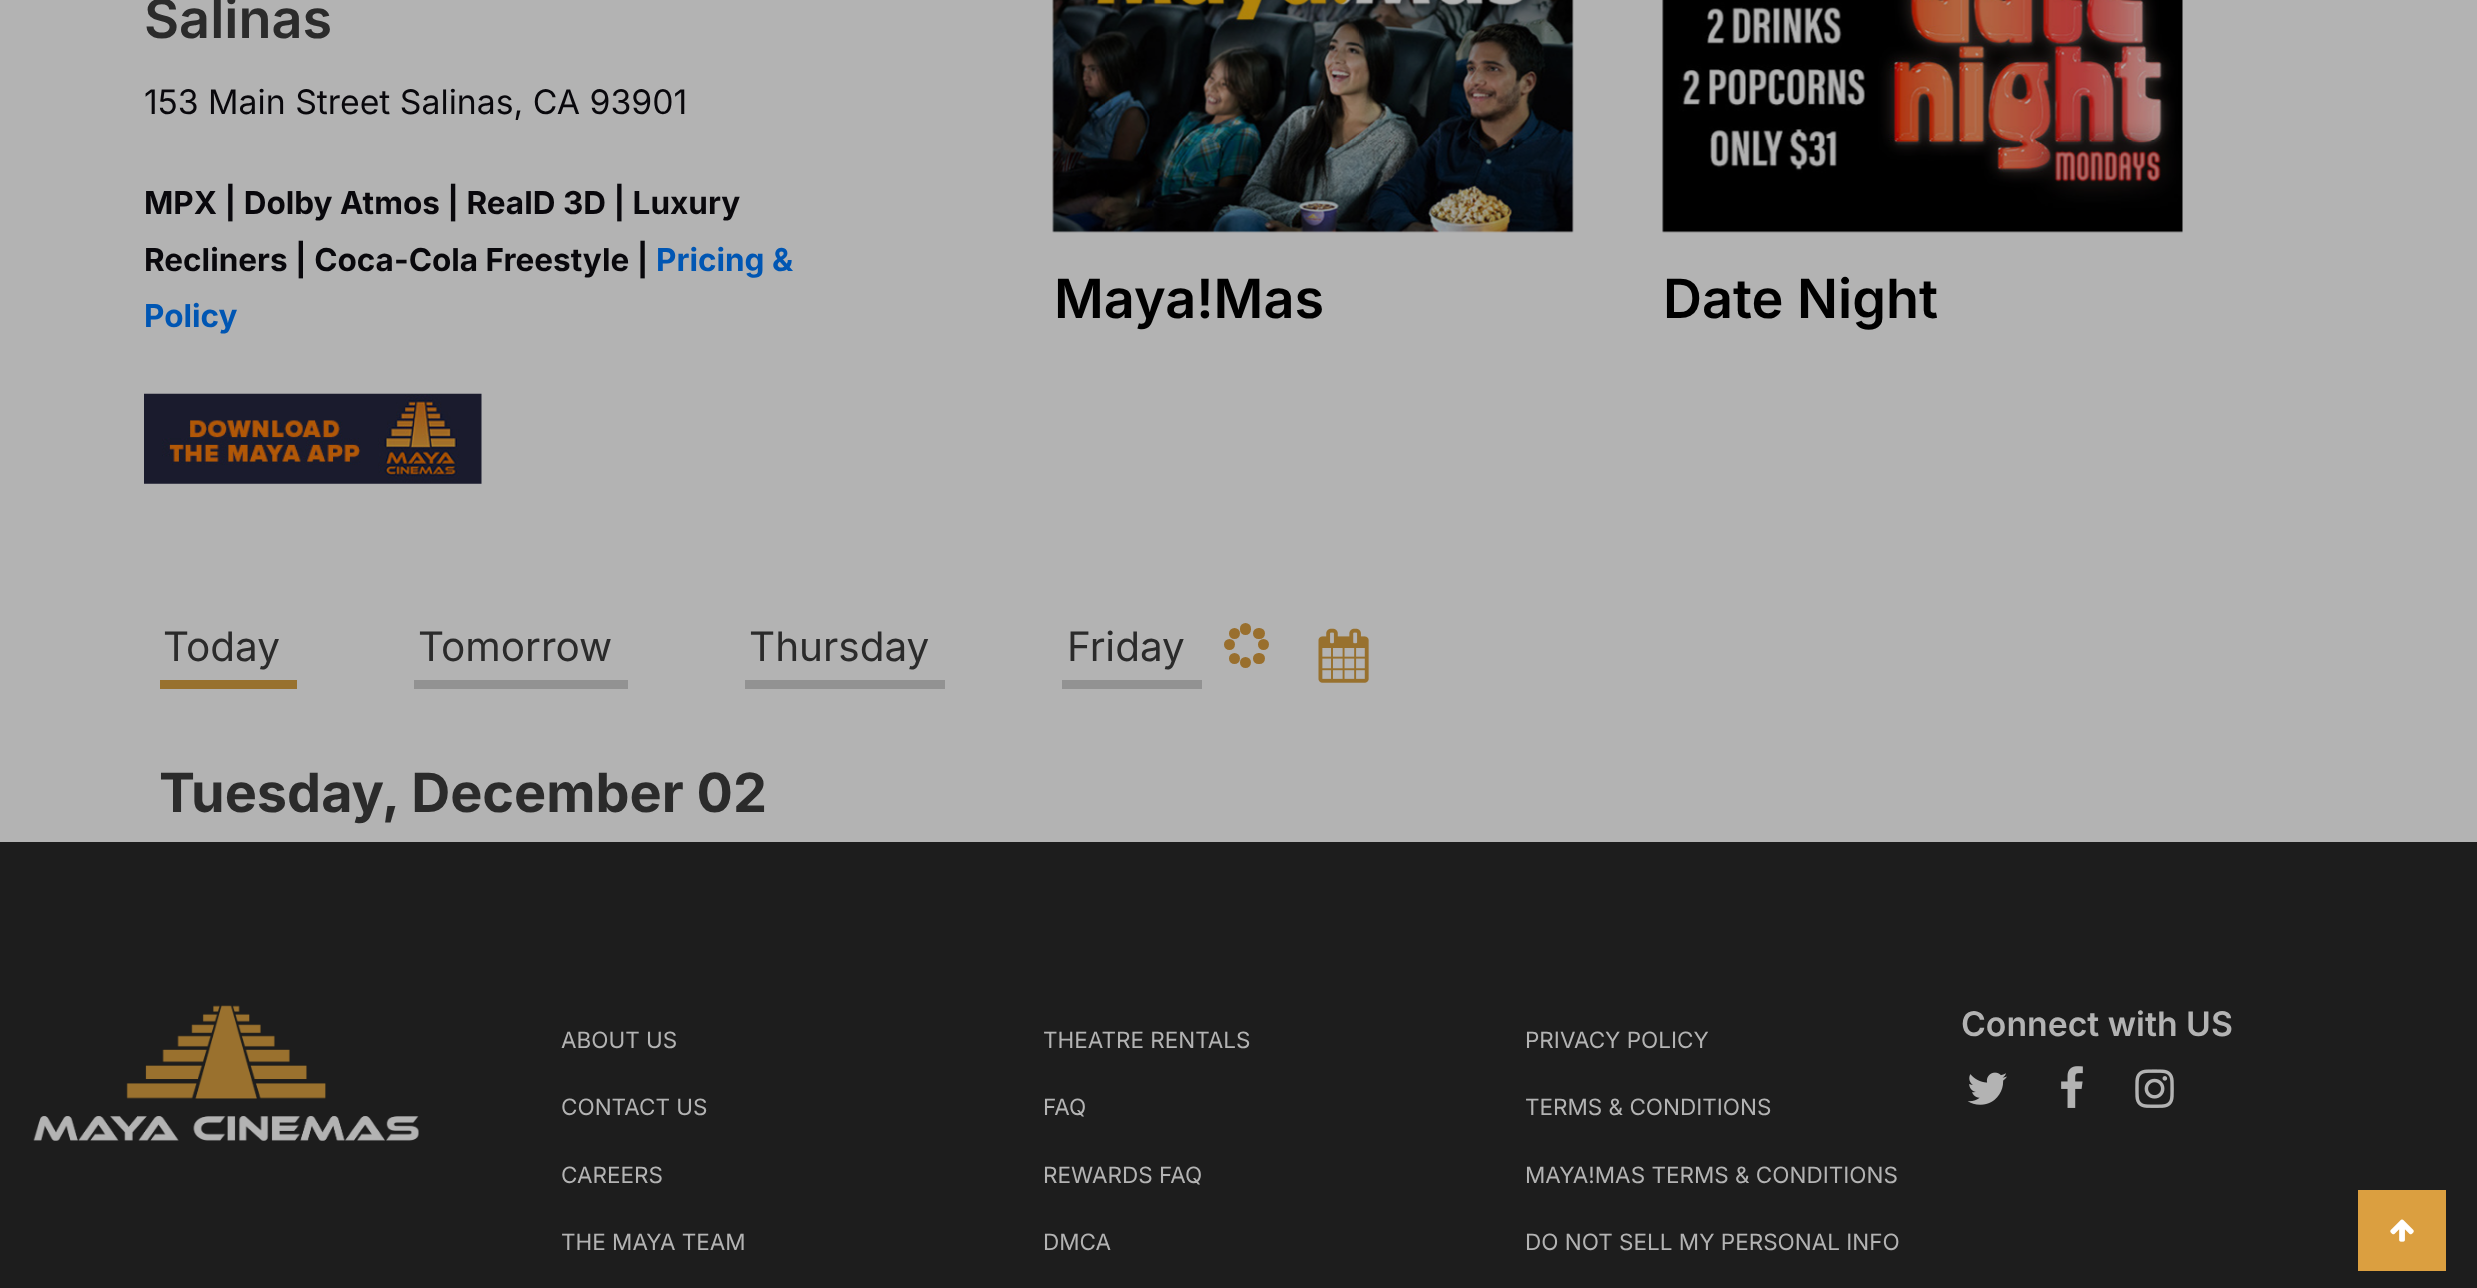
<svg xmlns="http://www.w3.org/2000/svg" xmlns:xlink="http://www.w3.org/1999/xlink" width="2477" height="1288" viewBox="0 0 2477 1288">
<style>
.cls-1{font:600 54px Inter;fill:#2b2b2b}
.cls-2{font:33.75px Inter;fill:#09080c}
.cls-3{font:bold 31.5px Inter;fill:#09080c}
.cls-4{font:bold 31.5px Inter;fill:#0056b3}
.cls-5{font:600 54px Inter;fill:#000000}
.cls-6{font:40.5px Inter;fill:#2b2b2b}
.cls-7{font:bold 54px Inter;fill:#2b2b2b}
.cls-8{font:600 33.75px Inter;fill:#b3b3b3}
.cls-9{font:22.5px Inter;fill:#b3b3b3}
</style>
<rect width="100%" height="100%" fill="#b3b3b3"/>
<image xlink:href="image0.png" x="144" y="393" width="338" height="91"/>
<image xlink:href="image1.png" x="1052" y="0" width="522" height="233"/>
<image xlink:href="image2.png" x="1662" y="0" width="521" height="233"/>
<rect fill="#98712e" x="160" y="680" width="137" height="9"/>
<rect fill="#929292" x="414" y="680" width="214" height="9"/>
<rect fill="#929292" x="745" y="680" width="200" height="9"/>
<rect fill="#929292" x="1062" y="680" width="140" height="9"/>
<image xlink:href="image3.png" x="1318" y="628" width="51" height="55"/>
<rect fill="#996f2d" x="1253" y="628" width="12" height="11" rx="5.5"/>
<rect fill="#996f2d" x="1240" y="623" width="11" height="12" rx="5.5"/>
<circle fill="#996f2d" cx="1234.5" cy="633.5" r="5.5"/>
<circle fill="#996f2d" cx="1229.5" cy="644.5" r="5.5"/>
<circle fill="#996f2d" cx="1234.5" cy="658.5" r="5.5"/>
<circle fill="#996f2d" cx="1245.5" cy="662.5" r="5.5"/>
<rect fill="#996f2d" x="1253" y="653" width="12" height="11" rx="5.5"/>
<circle fill="#996f2d" cx="1263.5" cy="644.5" r="5.5"/>
<rect fill="#1d1d1d" x="0" y="842" width="2477" height="446"/>
<image xlink:href="image4.png" x="33" y="1005" width="386" height="136"/>
<image xlink:href="image5.png" x="1967" y="1072" width="40" height="33"/>
<image xlink:href="image6.png" x="2061" y="1066" width="22" height="42"/>
<image xlink:href="image7.png" x="2135" y="1069" width="39" height="39"/>
<rect fill="#db9f40" x="2358" y="1190" width="88" height="81"/>
<image xlink:href="image8.png" x="2390" y="1219" width="24" height="23"/>
<text class="cls-1" x="144" y="38">Salinas</text>
<text class="cls-2" x="144" y="114">153 Main Street Salinas, CA 93901</text>
<text class="cls-3"><tspan x="144" y="214">MPX | Dolby Atmos | RealD 3D | Luxury</tspan><tspan x="144" y="271">Recliners | Coca-Cola Freestyle |</tspan></text>
<text class="cls-4" x="656" y="271">Pricing &amp;</text>
<text class="cls-4" x="144" y="327">Policy</text>
<text class="cls-5" x="1054" y="318">Maya!Mas</text>
<text class="cls-5" x="1663" y="318">Date Night</text>
<text class="cls-6" x="163" y="661">Today</text>
<text class="cls-6" x="418" y="661">Tomorrow</text>
<text class="cls-6" x="749" y="661">Thursday</text>
<text class="cls-6" x="1067" y="661">Friday</text>
<text class="cls-7" x="159" y="812">Tuesday, December 02</text>
<text class="cls-8" x="1961" y="1036">Connect with US</text>
<text class="cls-9" x="561" y="1048">ABOUT US</text>
<text class="cls-9" x="561" y="1115">CONTACT US</text>
<text class="cls-9" x="561" y="1183">CAREERS</text>
<text class="cls-9" x="561" y="1250">THE MAYA TEAM</text>
<text class="cls-9" x="1043" y="1048">THEATRE RENTALS</text>
<text class="cls-9" x="1043" y="1115">FAQ</text>
<text class="cls-9" x="1043" y="1183">REWARDS FAQ</text>
<text class="cls-9" x="1043" y="1250">DMCA</text>
<text class="cls-9" x="1525" y="1048">PRIVACY POLICY</text>
<text class="cls-9" x="1525" y="1115">TERMS &amp; CONDITIONS</text>
<text class="cls-9" x="1525" y="1183">MAYA!MAS TERMS &amp; CONDITIONS</text>
<text class="cls-9" x="1525" y="1250">DO NOT SELL MY PERSONAL INFO</text>
</svg>
